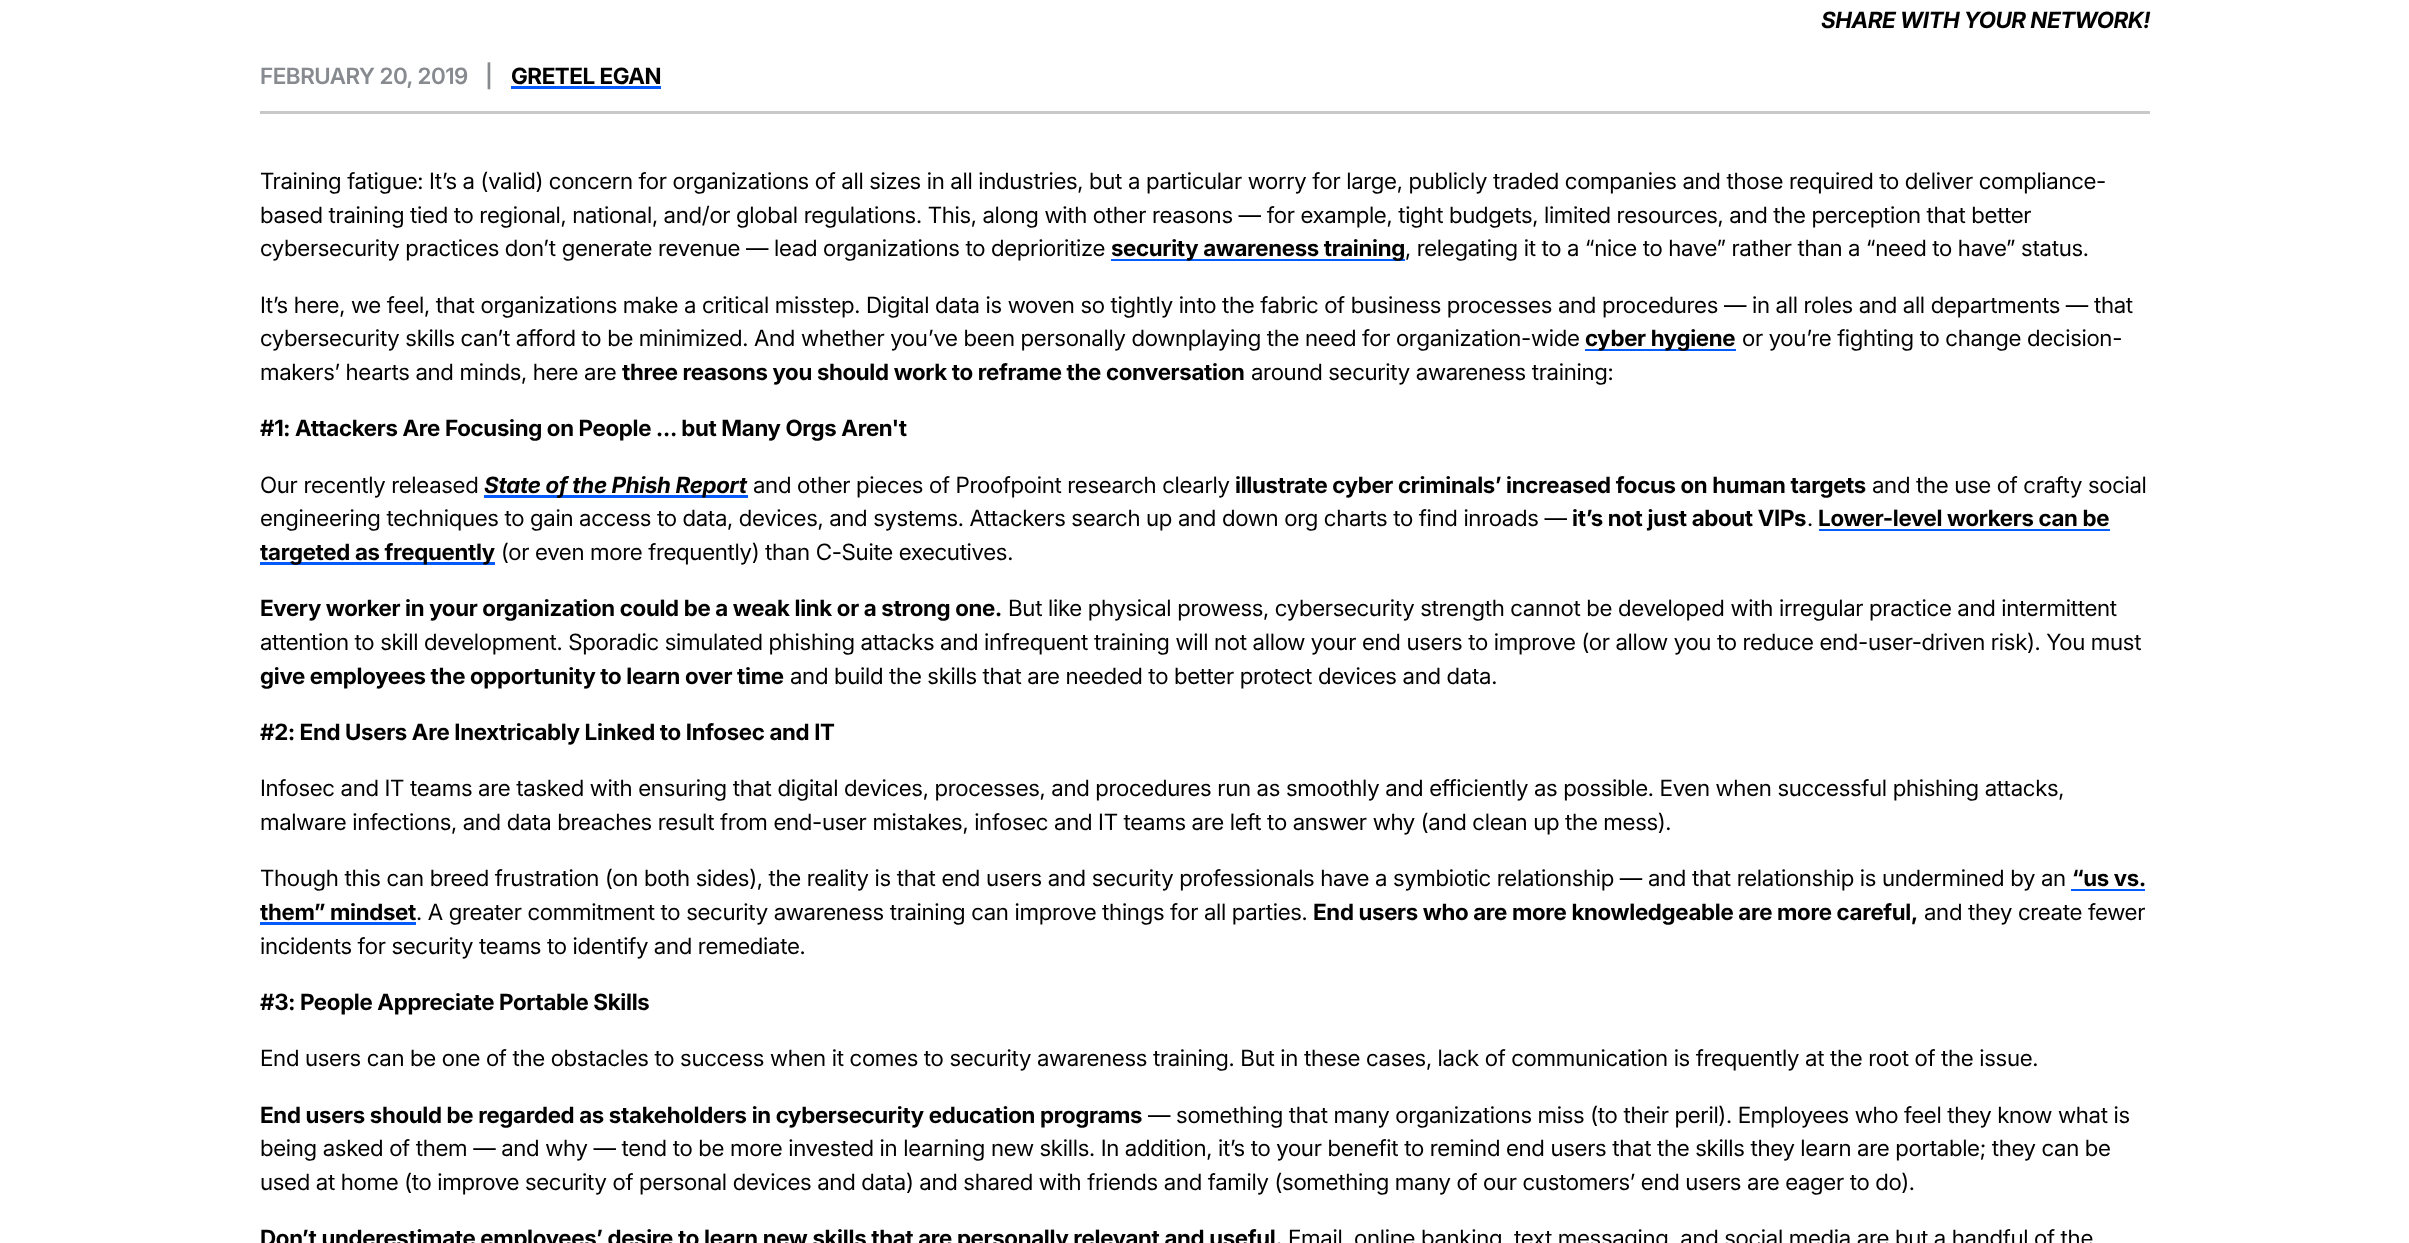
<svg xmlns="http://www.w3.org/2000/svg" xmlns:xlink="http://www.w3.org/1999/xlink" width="2409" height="1243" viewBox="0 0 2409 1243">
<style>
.cls-1{font:italic bold 22.5px Inter;letter-spacing:-0.45px;fill:#000000}
.cls-2{font:600 22.5px Inter;letter-spacing:-0.45px;fill:#878a8f}
.cls-3{font:bold 22.5px Inter;letter-spacing:-0.45px;fill:#000000}
.cls-4{font:22.5px Inter;letter-spacing:-0.3px;fill:#000000}
.cls-5{font:bold 22.5px Inter;letter-spacing:-0.3px;fill:#000000}
.cls-6{font:italic bold 22.5px Inter;letter-spacing:-0.3px;fill:#000000}
</style>
<defs>
<clipPath id="clip1"><rect x="511" y="63" width="150" height="26"/></clipPath>
<clipPath id="clip2"><rect x="1111" y="235" width="294" height="26"/></clipPath>
<clipPath id="clip3"><rect x="1585" y="325" width="151" height="26"/></clipPath>
<clipPath id="clip4"><rect x="484" y="471" width="264" height="27"/></clipPath>
<clipPath id="clip5"><rect x="1819" y="505" width="291" height="26"/></clipPath>
<clipPath id="clip6"><rect x="260" y="539" width="235" height="26"/></clipPath>
<clipPath id="clip7"><rect x="2071" y="865" width="74" height="26"/></clipPath>
<clipPath id="clip8"><rect x="260" y="899" width="156" height="26"/></clipPath>
</defs>
<rect width="100%" height="100%" fill="#ffffff"/>
<rect fill="#c7c9c8" x="260" y="111" width="1890" height="3"/>
<g clip-path="url(#clip1)">
<path fill="#035bfb" fill-rule="evenodd" d="M388-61H785V212H388ZM511 58H661C662 58 662 58 662 59V85C662 86 662 86 661 86H511C511 86 510 86 510 85V59C510 58 511 58 511 58Z"/>
</g>
<g clip-path="url(#clip2)">
<path fill="#035bfb" fill-rule="evenodd" d="M988 111H1529V385H988ZM1111 230H1405C1406 230 1406 231 1406 231V258C1406 258 1406 259 1405 259H1111C1111 259 1110 258 1110 258V231C1110 231 1111 230 1111 230Z"/>
</g>
<g clip-path="url(#clip3)">
<path fill="#035bfb" fill-rule="evenodd" d="M1461 201H1860V475H1461ZM1585 320H1736C1737 320 1738 321 1738 321V348C1738 348 1737 349 1736 349H1585C1584 349 1584 348 1584 348V321C1584 321 1584 320 1585 320Z"/>
</g>
<g clip-path="url(#clip4)">
<path fill="#035bfb" fill-rule="evenodd" d="M360 348H871V621H360ZM484 466H748C748 466 749 467 749 468V494C749 494 748 495 748 495H484C483 495 482 494 482 494V468C482 467 483 466 484 466Z"/>
</g>
<g clip-path="url(#clip5)">
<path fill="#035bfb" fill-rule="evenodd" d="M1695 381H2234V655H1695ZM1819 500H2110C2111 500 2111 501 2111 501V528C2111 528 2111 529 2110 529H1819C1818 529 1818 528 1818 528V501C1818 501 1818 500 1819 500Z"/>
</g>
<g clip-path="url(#clip6)">
<path fill="#035bfb" fill-rule="evenodd" d="M136 415H619V689H136ZM260 534H495C496 534 496 534 496 535V561C496 562 496 562 495 562H260C259 562 259 562 259 561V535C259 534 259 534 260 534Z"/>
</g>
<g clip-path="url(#clip7)">
<path fill="#035bfb" fill-rule="evenodd" d="M1948 741H2269V1015H1948ZM2071 860H2145C2146 860 2146 861 2146 861V888C2146 888 2146 889 2145 889H2071C2071 889 2070 888 2070 888V861C2070 861 2071 860 2071 860Z"/>
</g>
<g clip-path="url(#clip8)">
<path fill="#035bfb" fill-rule="evenodd" d="M136 775H540V1049H136ZM260 894H416C417 894 418 894 418 895V921C418 922 417 922 416 922H260C259 922 259 922 259 921V895C259 894 259 894 260 894Z"/>
</g>
<text class="cls-1" x="1821" y="28">SHARE WITH YOUR NETWORK!</text>
<text class="cls-2" x="260" y="84">FEBRUARY 20, 2019</text>
<text class="cls-2" x="485" y="84">|</text>
<text class="cls-3" x="511" y="84">GRETEL EGAN</text>
<text class="cls-4"><tspan x="260" y="189">Training fatigue: It’s a (valid) concern for organizations of all sizes in all industries, but a particular worry for large, publicly traded companies and those required to deliver compliance-</tspan><tspan x="260" y="223">based training tied to regional, national, and/or global regulations. This, along with other reasons — for example, tight budgets, limited resources, and the perception that better</tspan><tspan x="260" y="256">cybersecurity practices don’t generate revenue — lead organizations to deprioritize</tspan></text>
<text class="cls-5" x="1111" y="256">security awareness training</text>
<text class="cls-4" x="1405" y="256">, relegating it to a “nice to have” rather than a “need to have” status.</text>
<text class="cls-4"><tspan x="260" y="313">It’s here, we feel, that organizations make a critical misstep. Digital data is woven so tightly into the fabric of business processes and procedures — in all roles and all departments — that</tspan><tspan x="260" y="346">cybersecurity skills can’t afford to be minimized. And whether you’ve been personally downplaying the need for organization-wide</tspan></text>
<text class="cls-5" x="1585" y="346">cyber hygiene</text>
<text class="cls-4" x="1742" y="346">or you’re fighting to change decision-</text>
<text class="cls-4" x="260" y="380">makers’ hearts and minds, here are</text>
<text class="cls-5" x="622" y="380">three reasons you should work to reframe the conversation</text>
<text class="cls-4" x="1251" y="380">around security awareness training:</text>
<text class="cls-5" x="260" y="436">#1: Attackers Are Focusing on People … but Many Orgs Aren't</text>
<text class="cls-4" x="260" y="493">Our recently released</text>
<text class="cls-6" x="484" y="493">State of the Phish Report</text>
<text class="cls-4" x="753" y="493">and other pieces of Proofpoint research clearly</text>
<text class="cls-5" x="1235" y="493">illustrate cyber criminals’ increased focus on human targets</text>
<text class="cls-4" x="1872" y="493">and the use of crafty social</text>
<text class="cls-4" x="260" y="526">engineering techniques to gain access to data, devices, and systems. Attackers search up and down org charts to find inroads —</text>
<text class="cls-5" x="1572" y="526">it’s not just about VIPs</text>
<text class="cls-4" x="1807" y="526">.</text>
<text class="cls-5" x="1818" y="526">Lower-level workers can be</text>
<text class="cls-5" x="260" y="560">targeted as frequently</text>
<text class="cls-4" x="501" y="560">(or even more frequently) than C-Suite executives.</text>
<text class="cls-5" x="260" y="616">Every worker in your organization could be a weak link or a strong one.</text>
<text class="cls-4" x="1008" y="616">But like physical prowess, cybersecurity strength cannot be developed with irregular practice and intermittent</text>
<text class="cls-4" x="260" y="650">attention to skill development. Sporadic simulated phishing attacks and infrequent training will not allow your end users to improve (or allow you to reduce end-user-driven risk). You must</text>
<text class="cls-5" x="260" y="684">give employees the opportunity to learn over time</text>
<text class="cls-4" x="790" y="684">and build the skills that are needed to better protect devices and data.</text>
<text class="cls-5" x="260" y="740">#2: End Users Are Inextricably Linked to Infosec and IT</text>
<text class="cls-4"><tspan x="260" y="796">Infosec and IT teams are tasked with ensuring that digital devices, processes, and procedures run as smoothly and efficiently as possible. Even when successful phishing attacks,</tspan><tspan x="260" y="830">malware infections, and data breaches result from end-user mistakes, infosec and IT teams are left to answer why (and clean up the mess).</tspan></text>
<text class="cls-4" x="260" y="886">Though this can breed frustration (on both sides), the reality is that end users and security professionals have a symbiotic relationship — and that relationship is undermined by an</text>
<text class="cls-5" x="2072" y="886">“us vs.</text>
<text class="cls-5" x="260" y="920">them” mindset</text>
<text class="cls-4" x="416" y="920">. A greater commitment to security awareness training can improve things for all parties.</text>
<text class="cls-5" x="1313" y="920">End users who are more knowledgeable are more careful,</text>
<text class="cls-4" x="1924" y="920">and they create fewer</text>
<text class="cls-4" x="260" y="954">incidents for security teams to identify and remediate.</text>
<text class="cls-5" x="260" y="1010">#3: People Appreciate Portable Skills</text>
<text class="cls-4" x="260" y="1066">End users can be one of the obstacles to success when it comes to security awareness training. But in these cases, lack of communication is frequently at the root of the issue.</text>
<text class="cls-5" x="260" y="1123">End users should be regarded as stakeholders in cybersecurity education programs</text>
<text class="cls-4" x="1148" y="1123">— something that many organizations miss (to their peril). Employees who feel they know what is</text>
<text class="cls-4"><tspan x="260" y="1156">being asked of them — and why — tend to be more invested in learning new skills. In addition, it’s to your benefit to remind end users that the skills they learn are portable; they can be</tspan><tspan x="260" y="1190">used at home (to improve security of personal devices and data) and shared with friends and family (something many of our customers’ end users are eager to do).</tspan></text>
<text class="cls-5" x="260" y="1246">Don’t underestimate employees’ desire to learn new skills that are personally relevant and useful.</text>
<text class="cls-4" x="1288" y="1246">Email, online banking, text messaging, and social media are but a handful of the</text>
</svg>
